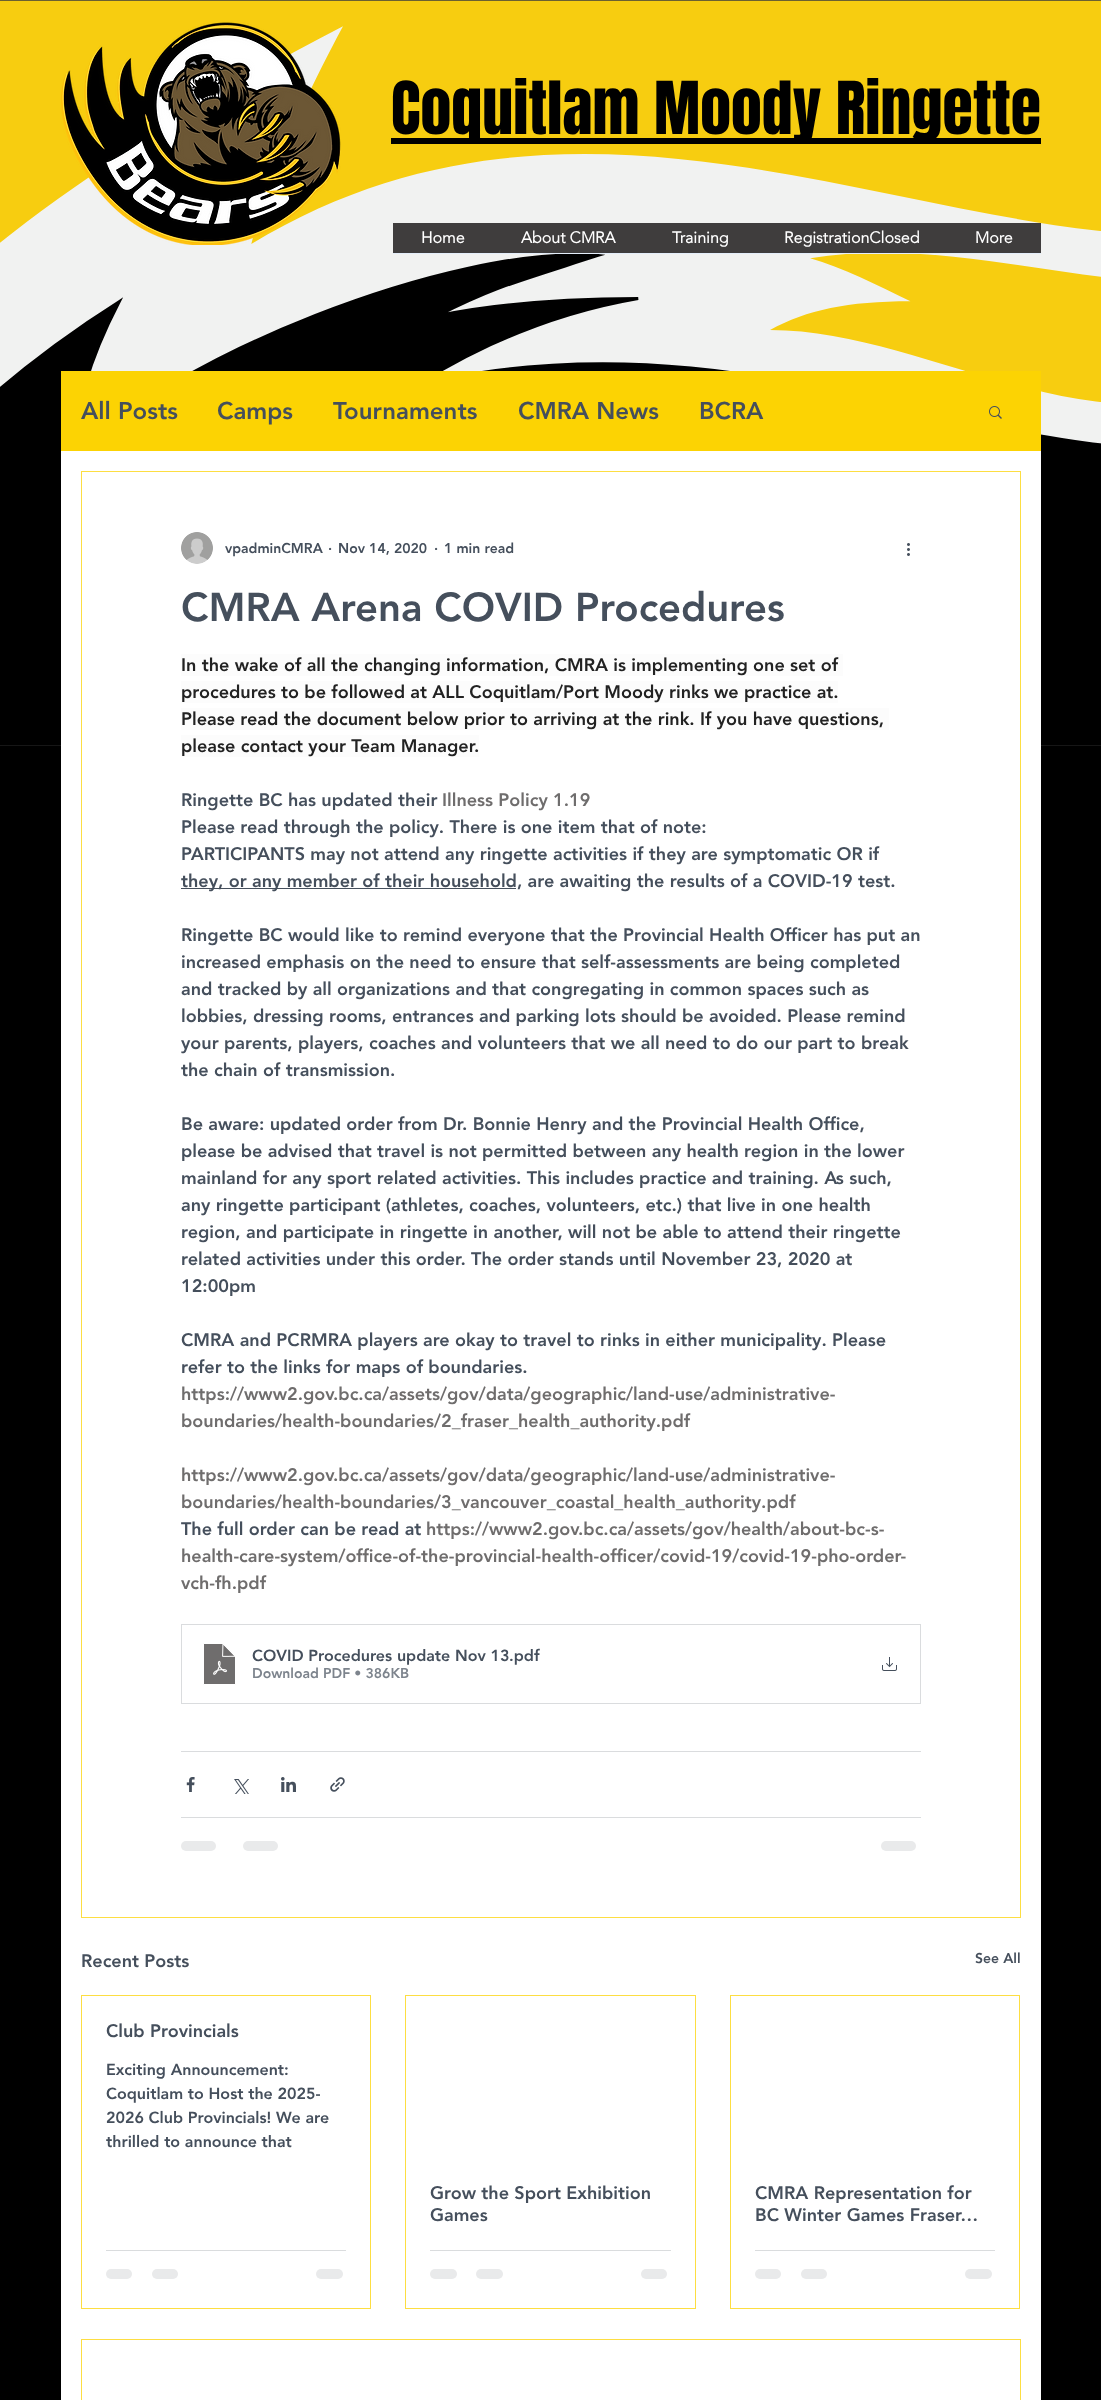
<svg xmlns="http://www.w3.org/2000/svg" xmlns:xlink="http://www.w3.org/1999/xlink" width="1101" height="2400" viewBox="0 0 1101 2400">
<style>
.cls-1{font:62px Anton;fill:#000000}
.cls-2{font:bold 16px 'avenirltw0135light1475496';fill:#ffffff}
.cls-3{font:900 24px 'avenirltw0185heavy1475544';fill:#454f5c}
.cls-4{font:900 14px 'avenirltw0185heavy1475544';fill:#454f5c}
.cls-5{font:900 40px 'avenirltw0185heavy1475544';fill:#454f5c}
.cls-6{font:900 18px 'avenirltw0185heavy1475544';fill:#222222}
.cls-7{font:900 18px 'avenirltw0185heavy1475544';fill:#454f5c}
.cls-8{font:900 18px 'avenirltw0185heavy1475544';fill:#6f6d6d}
.cls-9{font:900 16px 'avenirltw0185heavy1475544';fill:#454f5c}
.cls-10{font:900 14px 'avenirltw0185heavy1475544';fill:#7d848d}
</style>
<rect width="100%" height="100%" fill="#000000"/>
<image xlink:href="image0.png" x="0" y="0" width="1101" height="746"/>
<image xlink:href="image1.png" x="61" y="22" width="280" height="223"/>
<rect fill="#000000" x="391" y="138" width="650" height="6"/>
<rect fill="#3f3d3d" x="393" y="223" width="648" height="30"/>
<rect fill="#e3edf9" x="393" y="253" width="648" height="1"/>
<rect fill="#ffffff" x="61" y="451" width="980" height="1949"/>
<rect fill="#fcd303" x="61" y="371" width="980" height="80"/>
<image xlink:href="image2.png" x="989" y="406" width="13" height="13"/>
<rect fill="none" stroke="#fdde42" x="81.5" y="471.5" width="939" height="1446"/>
<image xlink:href="image3.png" x="181" y="532" width="32" height="32"/>
<image xlink:href="image4.png" x="907" y="543" width="3" height="13"/>
<rect fill="#fcfcfc" x="181" y="654" width="662" height="22"/>
<rect fill="#fcfcfc" x="181" y="681" width="657" height="22"/>
<rect fill="#fcfcfc" x="181" y="708" width="708" height="22"/>
<rect fill="#fcfcfc" x="181" y="735" width="298" height="22"/>
<rect fill="#454f5c" x="181" y="888" width="335" height="1"/>
<rect fill="none" stroke="#dadcde" x="181.5" y="1624.5" width="739" height="79"/>
<image xlink:href="image5.png" x="203" y="1643" width="33" height="42"/>
<image xlink:href="image6.png" x="882" y="1657" width="15" height="14"/>
<rect fill="#dadcde" x="181" y="1751" width="740" height="1"/>
<image xlink:href="image7.png" x="186" y="1777" width="9" height="15"/>
<image xlink:href="image8.png" x="234" y="1779" width="15" height="15"/>
<image xlink:href="image9.png" x="281" y="1777" width="15" height="15"/>
<image xlink:href="image10.png" x="330" y="1777" width="15" height="15"/>
<rect fill="#dadcde" x="181" y="1817" width="740" height="1"/>
<rect fill="#e9eaeb" x="181" y="1841" width="35" height="10" rx="5"/>
<rect fill="#e9eaeb" x="243" y="1841" width="35" height="10" rx="5"/>
<rect fill="#e9eaeb" x="881" y="1841" width="35" height="10" rx="5"/>
<rect fill="none" stroke="#fdde42" x="81.5" y="1995.5" width="289" height="313"/>
<rect fill="#dadcde" x="106" y="2250" width="240" height="1"/>
<rect fill="#e9eaeb" x="106" y="2269" width="26" height="10" rx="5"/>
<rect fill="#e9eaeb" x="152" y="2269" width="26" height="10" rx="5"/>
<rect fill="#e9eaeb" x="316" y="2269" width="27" height="10" rx="5"/>
<rect fill="none" stroke="#fdde42" x="405.5" y="1995.5" width="290" height="313"/>
<rect fill="#dadcde" x="430" y="2250" width="241" height="1"/>
<rect fill="#e9eaeb" x="430" y="2269" width="27" height="10" rx="5"/>
<rect fill="#e9eaeb" x="476" y="2269" width="27" height="10" rx="5"/>
<rect fill="#e9eaeb" x="641" y="2269" width="26" height="10" rx="5"/>
<rect fill="none" stroke="#fdde42" x="730.5" y="1995.5" width="289" height="313"/>
<rect fill="#dadcde" x="755" y="2250" width="240" height="1"/>
<rect fill="#e9eaeb" x="755" y="2269" width="26" height="10" rx="5"/>
<rect fill="#e9eaeb" x="801" y="2269" width="26" height="10" rx="5"/>
<rect fill="#e9eaeb" x="965" y="2269" width="27" height="10" rx="5"/>
<rect fill="none" stroke="#fdde42" x="81.5" y="2339.5" width="939" height="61"/>
<text class="cls-1" x="391" y="134">Coquitlam Moody Ringette</text>
<text class="cls-2" x="421" y="243">Home</text>
<text class="cls-2" x="521" y="243">About CMRA</text>
<text class="cls-2" x="672" y="243">Training</text>
<text class="cls-2" x="784" y="243">RegistrationClosed</text>
<text class="cls-2" x="975" y="243">More</text>
<text class="cls-3" x="81" y="419">All Posts</text>
<text class="cls-3" x="217" y="419">Camps</text>
<text class="cls-3" x="333" y="419">Tournaments</text>
<text class="cls-3" x="518" y="419">CMRA News</text>
<text class="cls-3" x="699" y="419">BCRA</text>
<text class="cls-4" x="225" y="553">vpadminCMRA</text>
<text class="cls-4" x="328" y="553">·</text>
<text class="cls-4" x="338" y="553">Nov 14, 2020</text>
<text class="cls-4" x="434" y="553">·</text>
<text class="cls-4" x="444" y="553">1 min read</text>
<text class="cls-5" x="181" y="621">CMRA Arena COVID Procedures</text>
<text class="cls-6"><tspan x="181" y="671">In the wake of all the changing information, CMRA is implementing one set of</tspan><tspan x="181" y="698">procedures to be followed at ALL Coquitlam/Port Moody rinks we practice at.</tspan><tspan x="181" y="725">Please read the document below prior to arriving at the rink. If you have questions,</tspan><tspan x="181" y="752">please contact your Team Manager.</tspan></text>
<text class="cls-7" x="181" y="806">Ringette BC has updated their</text>
<text class="cls-8" x="442" y="806">Illness Policy 1.19</text>
<text class="cls-7"><tspan x="181" y="833">Please read through the policy. There is one item that of note:</tspan><tspan x="181" y="860">PARTICIPANTS may not attend any ringette activities if they are symptomatic OR if</tspan><tspan x="181" y="887">they, or any member of their household, are awaiting the results of a COVID-19 test.</tspan></text>
<text class="cls-7"><tspan x="181" y="941">Ringette BC would like to remind everyone that the Provincial Health Officer has put an</tspan><tspan x="181" y="968">increased emphasis on the need to ensure that self-assessments are being completed</tspan><tspan x="181" y="995">and tracked by all organizations and that congregating in common spaces such as</tspan><tspan x="181" y="1022">lobbies, dressing rooms, entrances and parking lots should be avoided. Please remind</tspan><tspan x="181" y="1049">your parents, players, coaches and volunteers that we all need to do our part to break</tspan><tspan x="181" y="1076">the chain of transmission.</tspan></text>
<text class="cls-7"><tspan x="181" y="1130">Be aware: updated order from Dr. Bonnie Henry and the Provincial Health Office,</tspan><tspan x="181" y="1157">please be advised that travel is not permitted between any health region in the lower</tspan><tspan x="181" y="1184">mainland for any sport related activities. This includes practice and training. As such,</tspan><tspan x="181" y="1211">any ringette participant (athletes, coaches, volunteers, etc.) that live in one health</tspan><tspan x="181" y="1238">region, and participate in ringette in another, will not be able to attend their ringette</tspan><tspan x="181" y="1265">related activities under this order. The order stands until November 23, 2020 at</tspan><tspan x="181" y="1292">12:00pm</tspan></text>
<text class="cls-7"><tspan x="181" y="1346">CMRA and PCRMRA players are okay to travel to rinks in either municipality. Please</tspan><tspan x="181" y="1373">refer to the links for maps of boundaries.</tspan></text>
<text class="cls-8"><tspan x="181" y="1400">https://www2.gov.bc.ca/assets/gov/data/geographic/land-use/administrative-</tspan><tspan x="181" y="1427">boundaries/health-boundaries/2_fraser_health_authority.pdf</tspan></text>
<text class="cls-8"><tspan x="181" y="1481">https://www2.gov.bc.ca/assets/gov/data/geographic/land-use/administrative-</tspan><tspan x="181" y="1508">boundaries/health-boundaries/3_vancouver_coastal_health_authority.pdf</tspan></text>
<text class="cls-7" x="181" y="1535">The full order can be read at</text>
<text class="cls-8" x="426" y="1535">https://www2.gov.bc.ca/assets/gov/health/about-bc-s-</text>
<text class="cls-8"><tspan x="181" y="1562">health-care-system/office-of-the-provincial-health-officer/covid-19/covid-19-pho-order-</tspan><tspan x="181" y="1589">vch-fh.pdf</tspan></text>
<text class="cls-9" x="252" y="1661">COVID Procedures update Nov 13</text>
<text class="cls-9" x="509" y="1661">.pdf</text>
<text class="cls-10" x="252" y="1678">Download PDF • 386KB</text>
<text class="cls-7" x="81" y="1967">Recent Posts</text>
<text class="cls-4" x="975" y="1963">See All</text>
<text class="cls-7" x="106" y="2037">Club Provincials</text>
<text class="cls-9"><tspan x="106" y="2075">Exciting Announcement:</tspan><tspan x="106" y="2099">Coquitlam to Host the 2025-</tspan><tspan x="106" y="2123">2026 Club Provincials! We are</tspan><tspan x="106" y="2147">thrilled to announce that</tspan></text>
<text class="cls-7"><tspan x="430" y="2199">Grow the Sport Exhibition</tspan><tspan x="430" y="2221">Games</tspan></text>
<text class="cls-7"><tspan x="755" y="2199">CMRA Representation for</tspan><tspan x="755" y="2221">BC Winter Games Fraser…</tspan></text>
</svg>
